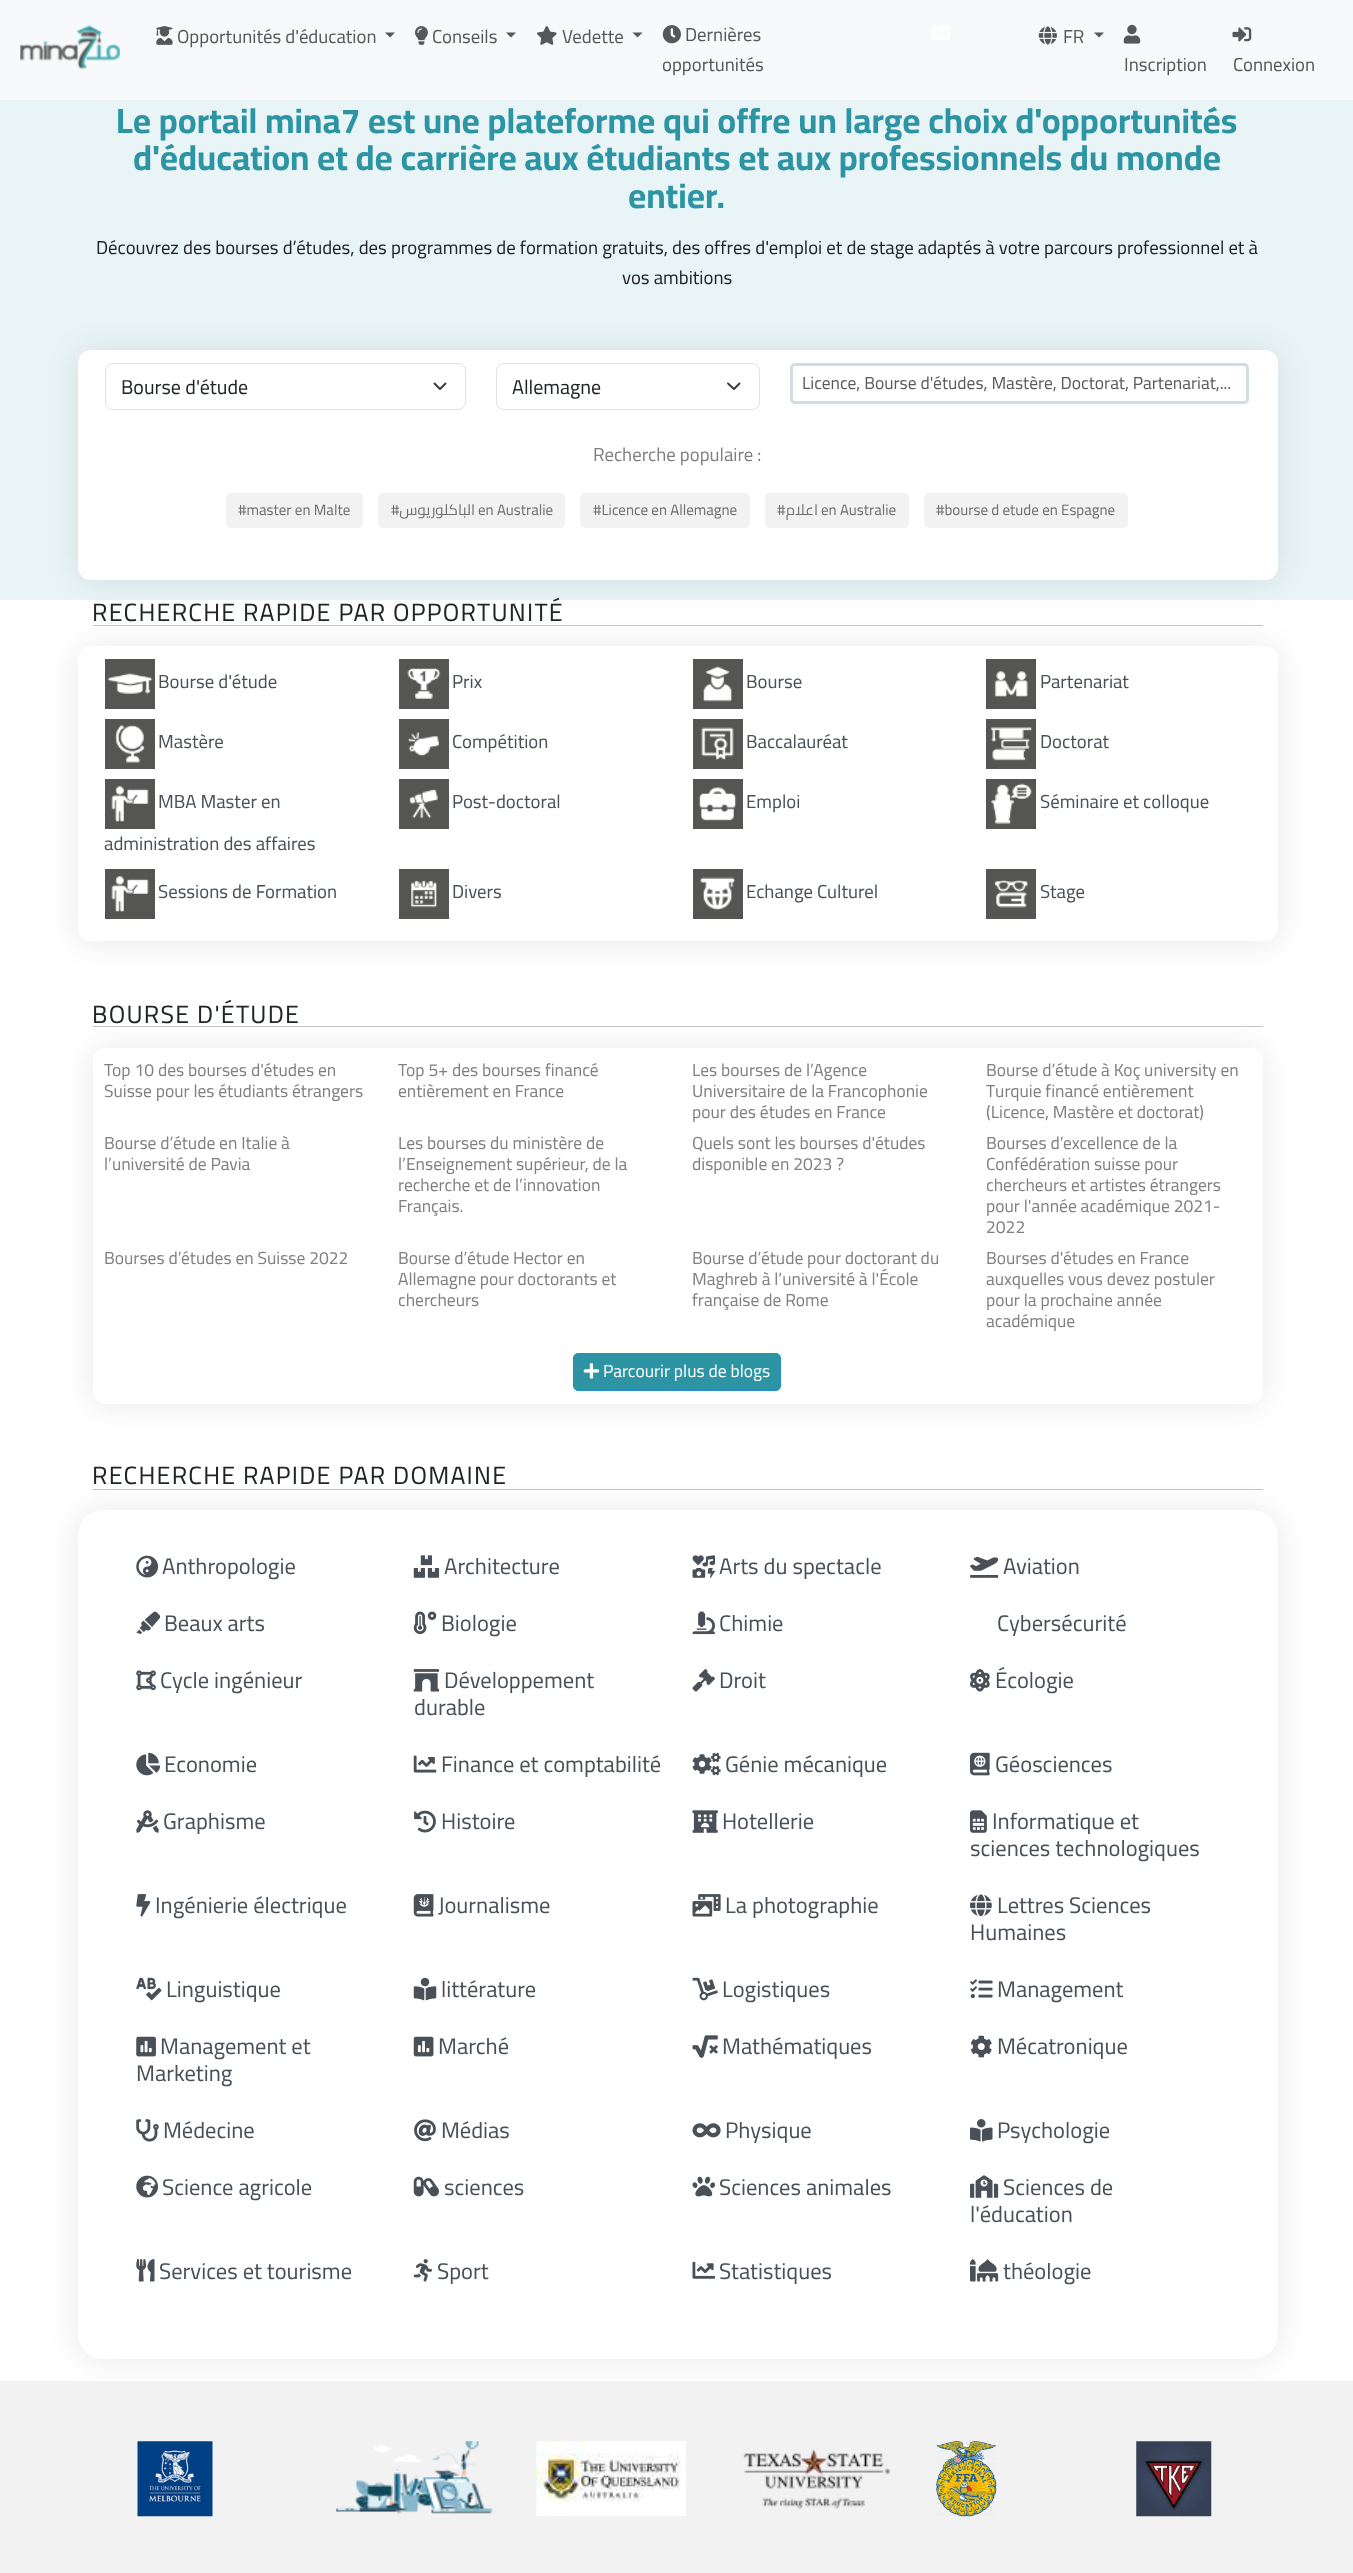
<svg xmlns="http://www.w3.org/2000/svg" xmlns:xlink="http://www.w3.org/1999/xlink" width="1353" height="2573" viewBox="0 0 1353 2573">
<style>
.cls-1{font:18.75px Cairo;fill:#575758}
.cls-2{font:bold 35px Cairo;fill:#2c94a3}
.cls-3{font:18.75px Cairo;fill:#212529}
.cls-4{font:20px Cairo;fill:#212529}
.cls-5{font:17.5px Cairo;fill:#595c5f}
.cls-6{font:18.75px Cairo;fill:#808080}
.cls-7{font:15px Cairo;fill:#6f6f6f}
.cls-8{font:15px Cairo;direction:rtl;fill:#6f6f6f}
.cls-9{font:25px Cairo;letter-spacing:1.25px;fill:#212529}
.cls-10{font:18.75px Cairo;fill:#495057}
.cls-11{font:17.5px Cairo;fill:#808080}
.cls-12{font:17.5px Cairo;fill:#ffffff}
.cls-13{font:22.5px Cairo;fill:#495057}
</style>
<rect width="100%" height="100%" fill="#ffffff"/>
<rect fill="#f8f9fa" x="0" y="0" width="1353" height="100"/>
<image xlink:href="image0.png" x="20" y="24" width="100" height="46"/>
<image xlink:href="image1.png" x="156" y="26" width="17" height="19"/>
<path fill="#575758" d="M385 32.5H395L390 37.5Z"/>
<image xlink:href="image2.png" x="415" y="26" width="13" height="19"/>
<path fill="#575758" d="M506 32.5H516L511 37.5Z"/>
<image xlink:href="image3.png" x="537" y="26" width="20" height="19"/>
<path fill="#575758" d="M632.5 32.5H642.5L637.5 37.5Z"/>
<image xlink:href="image4.png" x="662" y="25" width="19" height="19"/>
<image xlink:href="image5.png" x="931" y="26" width="19" height="14"/>
<image xlink:href="image6.png" x="1038" y="26" width="19" height="19"/>
<path fill="#575758" d="M1094 32.5H1104L1099 37.5Z"/>
<image xlink:href="image7.png" x="1123" y="24" width="18" height="20"/>
<image xlink:href="image8.png" x="1232" y="27" width="20" height="15"/>
<rect fill="#2c94a3" fill-opacity="0.1" x="0" y="100" width="1353" height="500"/>
<rect fill="#c4c4c4" x="93" y="625" width="1170" height="1"/>
<rect fill="#000000" fill-opacity="0.09" filter="blur(15.5px)" x="78" y="351" width="1200" height="230" rx="13"/>
<rect fill="#ffffff" x="78" y="350" width="1200" height="230" rx="13"/>
<path fill="none" stroke="#343a40" stroke-width="1.9" stroke-linecap="round" stroke-linejoin="round" d="M434.5 383.5L440 389L445.5 383.5"/>
<rect fill="none" stroke="#dee2e6" x="105.5" y="363.5" width="360" height="46" rx="7.5"/>
<path fill="none" stroke="#343a40" stroke-width="1.9" stroke-linecap="round" stroke-linejoin="round" d="M728 383.5L734 389L739.5 383.5"/>
<rect fill="none" stroke="#dee2e6" x="496.5" y="363.5" width="263" height="46" rx="7.5"/>
<rect fill="none" stroke="#d3dce0" stroke-width="3" x="791.5" y="364.5" width="456" height="38" rx="3.5"/>
<rect fill="#f2f2f2" x="226" y="493" width="137" height="35" rx="5"/>
<rect fill="#f2f2f2" x="378" y="493" width="187" height="35" rx="5"/>
<rect fill="#f2f2f2" x="580" y="493" width="170" height="35" rx="5"/>
<rect fill="#f2f2f2" x="765" y="493" width="144" height="35" rx="5"/>
<rect fill="#f2f2f2" x="924" y="493" width="204" height="35" rx="5"/>
<rect fill="#000000" fill-opacity="0.09" filter="blur(15.5px)" x="78" y="648" width="1200" height="295" rx="13"/>
<rect fill="#ffffff" x="78" y="646" width="1200" height="295" rx="13"/>
<rect fill="#555553" x="105" y="659" width="50" height="50"/>
<image xlink:href="image9.png" x="107" y="673" width="46" height="21"/>
<rect fill="#555553" x="399" y="659" width="50" height="50"/>
<image xlink:href="image10.png" x="407" y="668" width="34" height="31"/>
<rect fill="#555553" x="693" y="659" width="50" height="50"/>
<image xlink:href="image11.png" x="703" y="666" width="29" height="36"/>
<rect fill="#555553" x="986" y="659" width="50" height="50"/>
<image xlink:href="image12.png" x="994" y="671" width="34" height="26"/>
<rect fill="#555553" x="105" y="719" width="50" height="50"/>
<image xlink:href="image13.png" x="115" y="724" width="30" height="39"/>
<rect fill="#555553" x="399" y="719" width="50" height="50"/>
<image xlink:href="image14.png" x="408" y="732" width="32" height="24"/>
<rect fill="#555553" x="693" y="719" width="50" height="50"/>
<image xlink:href="image15.png" x="701" y="727" width="33" height="34"/>
<rect fill="#555553" x="986" y="719" width="50" height="50"/>
<image xlink:href="image16.png" x="990" y="727" width="42" height="34"/>
<rect fill="#555553" x="105" y="779" width="50" height="50"/>
<image xlink:href="image17.png" x="111" y="786" width="38" height="36"/>
<rect fill="#555553" x="399" y="779" width="50" height="50"/>
<image xlink:href="image18.png" x="409" y="788" width="29" height="31"/>
<rect fill="#555553" x="693" y="779" width="50" height="50"/>
<image xlink:href="image19.png" x="698" y="787" width="39" height="34"/>
<rect fill="#555553" x="986" y="779" width="50" height="50"/>
<image xlink:href="image20.png" x="991" y="783" width="41" height="41"/>
<rect fill="#555553" x="105" y="869" width="50" height="50"/>
<image xlink:href="image21.png" x="111" y="876" width="38" height="36"/>
<rect fill="#555553" x="399" y="869" width="50" height="50"/>
<image xlink:href="image22.png" x="411" y="880" width="26" height="28"/>
<rect fill="#555553" x="693" y="869" width="50" height="50"/>
<image xlink:href="image23.png" x="699" y="877" width="37" height="34"/>
<rect fill="#555553" x="986" y="869" width="50" height="50"/>
<image xlink:href="image24.png" x="994" y="880" width="34" height="28"/>
<rect fill="#c4c4c4" x="93" y="1026" width="1170" height="1"/>
<rect fill="#000000" fill-opacity="0.09" filter="blur(15.5px)" x="93" y="1049" width="1170" height="356" rx="13"/>
<rect fill="#ffffff" x="93" y="1048" width="1170" height="356" rx="13"/>
<rect fill="#2c94a3" stroke="#258cd1" x="573.5" y="1353.5" width="207" height="37" rx="4.5"/>
<image xlink:href="image25.png" x="583" y="1363" width="17" height="16"/>
<rect fill="#c4c4c4" x="93" y="1489" width="1170" height="1"/>
<rect fill="#000000" fill-opacity="0.09" filter="blur(15.5px)" x="78" y="1511" width="1200" height="849" rx="25"/>
<rect fill="#ffffff" x="78" y="1510" width="1200" height="849" rx="25"/>
<image xlink:href="image26.png" x="136" y="1555" width="23" height="23"/>
<image xlink:href="image27.png" x="413" y="1555" width="27" height="23"/>
<image xlink:href="image28.png" x="692" y="1555" width="24" height="23"/>
<image xlink:href="image29.png" x="970" y="1556" width="29" height="22"/>
<image xlink:href="image30.png" x="136" y="1611" width="25" height="23"/>
<image xlink:href="image31.png" x="413" y="1611" width="24" height="24"/>
<image xlink:href="image32.png" x="692" y="1611" width="23" height="24"/>
<image xlink:href="image33.png" x="136" y="1670" width="20" height="21"/>
<image xlink:href="image34.png" x="413" y="1669" width="27" height="23"/>
<image xlink:href="image35.png" x="692" y="1669" width="23" height="23"/>
<image xlink:href="image36.png" x="970" y="1669" width="20" height="23"/>
<image xlink:href="image37.png" x="136" y="1752" width="25" height="24"/>
<image xlink:href="image38.png" x="413" y="1755" width="24" height="18"/>
<image xlink:href="image39.png" x="692" y="1752" width="29" height="24"/>
<image xlink:href="image40.png" x="970" y="1752" width="20" height="24"/>
<image xlink:href="image41.png" x="136" y="1810" width="23" height="23"/>
<image xlink:href="image42.png" x="414" y="1810" width="22" height="23"/>
<image xlink:href="image43.png" x="692" y="1810" width="26" height="23"/>
<image xlink:href="image44.png" x="970" y="1810" width="17" height="23"/>
<image xlink:href="image45.png" x="136" y="1894" width="15" height="23"/>
<image xlink:href="image46.png" x="413" y="1894" width="21" height="23"/>
<image xlink:href="image47.png" x="692" y="1894" width="29" height="23"/>
<image xlink:href="image48.png" x="970" y="1894" width="22" height="23"/>
<image xlink:href="image49.png" x="136" y="1977" width="26" height="24"/>
<image xlink:href="image50.png" x="413" y="1977" width="24" height="24"/>
<image xlink:href="image51.png" x="692" y="1977" width="26" height="24"/>
<image xlink:href="image52.png" x="970" y="1979" width="23" height="20"/>
<image xlink:href="image53.png" x="136" y="2036" width="20" height="21"/>
<image xlink:href="image54.png" x="413" y="2036" width="21" height="21"/>
<image xlink:href="image55.png" x="692" y="2035" width="26" height="23"/>
<image xlink:href="image56.png" x="970" y="2035" width="22" height="23"/>
<image xlink:href="image57.png" x="136" y="2119" width="23" height="23"/>
<image xlink:href="image58.png" x="414" y="2119" width="22" height="23"/>
<image xlink:href="image59.png" x="692" y="2123" width="29" height="15"/>
<image xlink:href="image60.png" x="970" y="2119" width="23" height="23"/>
<image xlink:href="image61.png" x="136" y="2175" width="23" height="23"/>
<image xlink:href="image62.png" x="413" y="2176" width="27" height="21"/>
<image xlink:href="image63.png" x="692" y="2176" width="24" height="21"/>
<image xlink:href="image64.png" x="970" y="2175" width="29" height="23"/>
<image xlink:href="image65.png" x="136" y="2259" width="19" height="23"/>
<image xlink:href="image66.png" x="413" y="2259" width="19" height="23"/>
<image xlink:href="image67.png" x="692" y="2261" width="23" height="18"/>
<image xlink:href="image68.png" x="970" y="2259" width="29" height="23"/>
<rect fill="#f2f2f2" x="0" y="2381" width="1353" height="192"/>
<image xlink:href="image69.png" x="137" y="2441" width="76" height="76"/>
<image xlink:href="image70.png" x="336" y="2441" width="157" height="73"/>
<image xlink:href="image71.png" x="536" y="2441" width="150" height="75"/>
<image xlink:href="image72.png" x="743" y="2449" width="147" height="60"/>
<image xlink:href="image73.png" x="936" y="2441" width="61" height="76"/>
<image xlink:href="image74.png" x="1136" y="2441" width="76" height="76"/>
<text class="cls-1" x="177" y="43">Opportunités d'éducation</text>
<text class="cls-1" x="432" y="43">Conseils</text>
<text class="cls-1" x="562" y="43">Vedette</text>
<text class="cls-1" x="685" y="41">Dernières</text>
<text class="cls-1" x="662" y="71">opportunités</text>
<text class="cls-1" x="1063" y="43">FR</text>
<text class="cls-1" x="1124" y="71">Inscription</text>
<text class="cls-1" x="1233" y="71">Connexion</text>
<text class="cls-2" x="116" y="133">Le portail mina7 est une plateforme qui offre un large choix d'opportunités</text>
<text class="cls-2" x="133" y="170">d'éducation et de carrière aux étudiants et aux professionnels du monde</text>
<text class="cls-2" x="628" y="208">entier.</text>
<text class="cls-3" x="96" y="254">Découvrez des bourses d’études, des programmes de formation gratuits, des offres d'emploi et de stage adaptés à votre parcours professionnel et à</text>
<text class="cls-3" x="622" y="284">vos ambitions</text>
<text class="cls-4" x="121" y="394">Bourse d'étude</text>
<text class="cls-4" x="512" y="394">Allemagne</text>
<text class="cls-5" x="802" y="389">Licence, Bourse d'études, Mastère, Doctorat, Partenariat,...</text>
<text class="cls-6" x="593" y="461">Recherche populaire :</text>
<text class="cls-7" x="238" y="515">#master en Malte</text>
<text class="cls-7" x="391" y="515">#</text>
<text class="cls-8" x="475" y="515">الباكلوريوس</text>
<text class="cls-7" x="478" y="515">en Australie</text>
<text class="cls-7" x="593" y="515">#Licence en Allemagne</text>
<text class="cls-7" x="777" y="515">#</text>
<text class="cls-8" x="818" y="515">اعلام</text>
<text class="cls-7" x="821" y="515">en Australie</text>
<text class="cls-7" x="936" y="515">#bourse d etude en Espagne</text>
<text class="cls-9" x="92" y="621">RECHERCHE RAPIDE PAR OPPORTUNITÉ</text>
<text class="cls-10" x="158" y="688">Bourse d'étude</text>
<text class="cls-10" x="452" y="688">Prix</text>
<text class="cls-10" x="746" y="688">Bourse</text>
<text class="cls-10" x="1040" y="688">Partenariat</text>
<text class="cls-10" x="158" y="748">Mastère</text>
<text class="cls-10" x="452" y="748">Compétition</text>
<text class="cls-10" x="746" y="748">Baccalauréat</text>
<text class="cls-10" x="1040" y="748">Doctorat</text>
<text class="cls-10" x="158" y="808">MBA Master en</text>
<text class="cls-10" x="104" y="850">administration des affaires</text>
<text class="cls-10" x="452" y="808">Post-doctoral</text>
<text class="cls-10" x="746" y="808">Emploi</text>
<text class="cls-10" x="1040" y="808">Séminaire et colloque</text>
<text class="cls-10" x="158" y="898">Sessions de Formation</text>
<text class="cls-10" x="452" y="898">Divers</text>
<text class="cls-10" x="746" y="898">Echange Culturel</text>
<text class="cls-10" x="1040" y="898">Stage</text>
<text class="cls-9" x="92" y="1023">BOURSE D'ÉTUDE</text>
<text class="cls-11"><tspan x="104" y="1076">Top 10 des bourses d'études en</tspan><tspan x="104" y="1097">Suisse pour les étudiants étrangers</tspan></text>
<text class="cls-11"><tspan x="398" y="1076">Top 5+ des bourses financé</tspan><tspan x="398" y="1097">entièrement en France</tspan></text>
<text class="cls-11"><tspan x="692" y="1076">Les bourses de l’Agence</tspan><tspan x="692" y="1097">Universitaire de la Francophonie</tspan><tspan x="692" y="1118">pour des études en France</tspan></text>
<text class="cls-11"><tspan x="986" y="1076">Bourse d’étude à Koç university en</tspan><tspan x="986" y="1097">Turquie financé entièrement</tspan><tspan x="986" y="1118">(Licence, Mastère et doctorat)</tspan></text>
<text class="cls-11"><tspan x="104" y="1149">Bourse d’étude en Italie à</tspan><tspan x="104" y="1170">l’université de Pavia</tspan></text>
<text class="cls-11"><tspan x="398" y="1149">Les bourses du ministère de</tspan><tspan x="398" y="1170">l’Enseignement supérieur, de la</tspan><tspan x="398" y="1191">recherche et de l’innovation</tspan><tspan x="398" y="1212">Français.</tspan></text>
<text class="cls-11"><tspan x="692" y="1149">Quels sont les bourses d'études</tspan><tspan x="692" y="1170">disponible en 2023 ?</tspan></text>
<text class="cls-11"><tspan x="986" y="1149">Bourses d’excellence de la</tspan><tspan x="986" y="1170">Confédération suisse pour</tspan><tspan x="986" y="1191">chercheurs et artistes étrangers</tspan><tspan x="986" y="1212">pour l'année académique 2021-</tspan><tspan x="986" y="1233">2022</tspan></text>
<text class="cls-11" x="104" y="1264">Bourses d’études en Suisse 2022</text>
<text class="cls-11"><tspan x="398" y="1264">Bourse d’étude Hector en</tspan><tspan x="398" y="1285">Allemagne pour doctorants et</tspan><tspan x="398" y="1306">chercheurs</tspan></text>
<text class="cls-11"><tspan x="692" y="1264">Bourse d’étude pour doctorant du</tspan><tspan x="692" y="1285">Maghreb à l’université à l'École</tspan><tspan x="692" y="1306">française de Rome</tspan></text>
<text class="cls-11"><tspan x="986" y="1264">Bourses d'études en France</tspan><tspan x="986" y="1285">auxquelles vous devez postuler</tspan><tspan x="986" y="1306">pour la prochaine année</tspan><tspan x="986" y="1327">académique</tspan></text>
<text class="cls-12" x="603" y="1377">Parcourir plus de blogs</text>
<text class="cls-9" x="92" y="1484">RECHERCHE RAPIDE PAR DOMAINE</text>
<text class="cls-13" x="162" y="1574">Anthropologie</text>
<text class="cls-13" x="444" y="1574">Architecture</text>
<text class="cls-13" x="719" y="1574">Arts du spectacle</text>
<text class="cls-13" x="1003" y="1574">Aviation</text>
<text class="cls-13" x="164" y="1631">Beaux arts</text>
<text class="cls-13" x="441" y="1631">Biologie</text>
<text class="cls-13" x="719" y="1631">Chimie</text>
<text class="cls-13" x="997" y="1631">Cybersécurité</text>
<text class="cls-13" x="160" y="1688">Cycle ingénieur</text>
<text class="cls-13" x="444" y="1688">Développement</text>
<text class="cls-13" x="414" y="1715">durable</text>
<text class="cls-13" x="719" y="1688">Droit</text>
<text class="cls-13" x="995" y="1688">Écologie</text>
<text class="cls-13" x="164" y="1772">Economie</text>
<text class="cls-13" x="441" y="1772">Finance et comptabilité</text>
<text class="cls-13" x="725" y="1772">Génie mécanique</text>
<text class="cls-13" x="995" y="1772">Géosciences</text>
<text class="cls-13" x="163" y="1829">Graphisme</text>
<text class="cls-13" x="441" y="1829">Histoire</text>
<text class="cls-13" x="722" y="1829">Hotellerie</text>
<text class="cls-13" x="992" y="1829">Informatique et</text>
<text class="cls-13" x="970" y="1856">sciences technologiques</text>
<text class="cls-13" x="155" y="1913">Ingénierie électrique</text>
<text class="cls-13" x="438" y="1913">Journalisme</text>
<text class="cls-13" x="725" y="1913">La photographie</text>
<text class="cls-13" x="997" y="1913">Lettres Sciences</text>
<text class="cls-13" x="970" y="1940">Humaines</text>
<text class="cls-13" x="166" y="1997">Linguistique</text>
<text class="cls-13" x="441" y="1997">littérature</text>
<text class="cls-13" x="722" y="1997">Logistiques</text>
<text class="cls-13" x="997" y="1997">Management</text>
<text class="cls-13" x="160" y="2054">Management et</text>
<text class="cls-13" x="136" y="2081">Marketing</text>
<text class="cls-13" x="438" y="2054">Marché</text>
<text class="cls-13" x="722" y="2054">Mathématiques</text>
<text class="cls-13" x="997" y="2054">Mécatronique</text>
<text class="cls-13" x="163" y="2138">Médecine</text>
<text class="cls-13" x="441" y="2138">Médias</text>
<text class="cls-13" x="725" y="2138">Physique</text>
<text class="cls-13" x="997" y="2138">Psychologie</text>
<text class="cls-13" x="162" y="2195">Science agricole</text>
<text class="cls-13" x="444" y="2195">sciences</text>
<text class="cls-13" x="719" y="2195">Sciences animales</text>
<text class="cls-13" x="1003" y="2195">Sciences de</text>
<text class="cls-13" x="970" y="2222">l'éducation</text>
<text class="cls-13" x="159" y="2279">Services et tourisme</text>
<text class="cls-13" x="437" y="2279">Sport</text>
<text class="cls-13" x="719" y="2279">Statistiques</text>
<text class="cls-13" x="1003" y="2279">théologie</text>
</svg>
